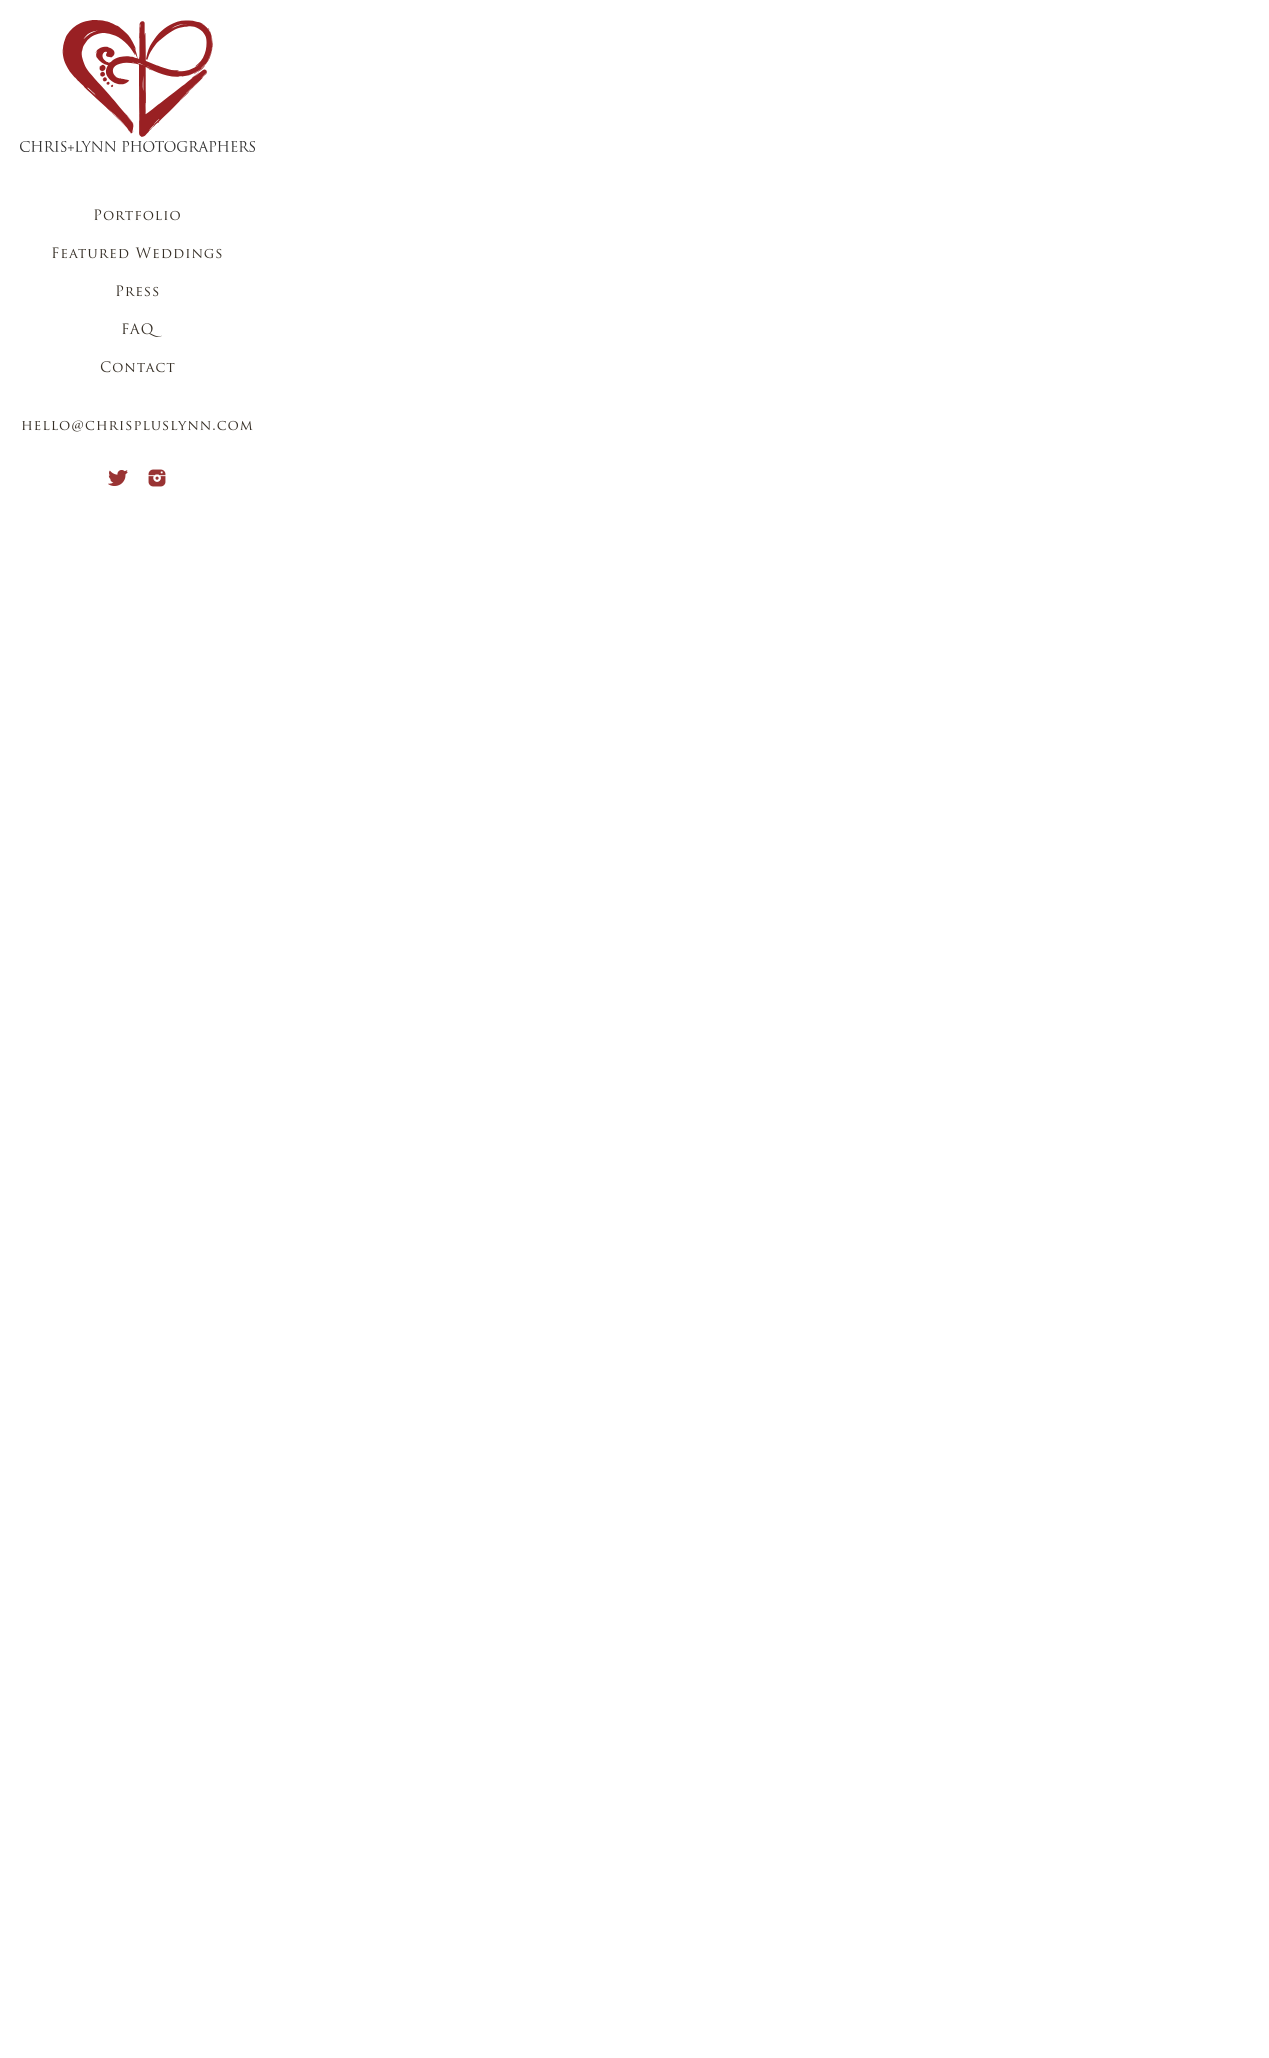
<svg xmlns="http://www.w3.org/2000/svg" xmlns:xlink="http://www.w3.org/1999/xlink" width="1269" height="2058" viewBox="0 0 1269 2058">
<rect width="100%" height="100%" fill="#ffffff"/>
<image xlink:href="image0.png" x="20" y="20" width="235" height="132"/>
<image xlink:href="image1.png" x="94" y="209" width="86" height="12"/>
<image xlink:href="image2.png" x="52" y="247" width="170" height="12"/>
<image xlink:href="image3.png" x="116" y="285" width="43" height="12"/>
<image xlink:href="image4.png" x="122" y="323" width="40" height="14"/>
<image xlink:href="image5.png" x="100" y="361" width="75" height="12"/>
<image xlink:href="image6.png" x="22" y="420" width="231" height="12"/>
<image xlink:href="image7.png" x="108" y="470" width="20" height="16"/>
<image xlink:href="image8.png" x="148" y="469" width="18" height="18"/>
</svg>
